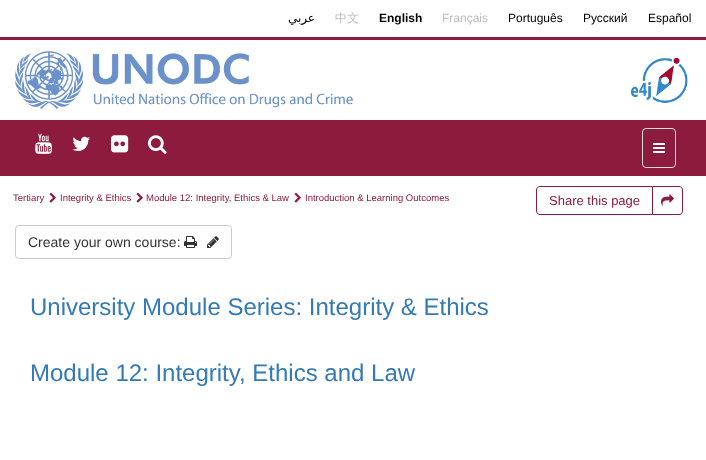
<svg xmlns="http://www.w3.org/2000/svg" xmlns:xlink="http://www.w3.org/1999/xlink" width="706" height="460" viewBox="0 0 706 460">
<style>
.cls-1{font:12px DejaVu Sans;direction:rtl;fill:#000000}
.cls-2{font:500 12px WenQuanYi Zen Hei;fill:#bbbbbb}
.cls-3{font:bold 12px Liberation Sans;fill:#000000}
.cls-4{font:12px Liberation Sans;fill:#bbbbbb}
.cls-5{font:12px Liberation Sans;fill:#000000}
.cls-6{font:9.5px Liberation Sans;fill:#8d1b3d}
.cls-7{font:13px Liberation Sans;fill:#8d1b3d}
.cls-8{font:14px Liberation Sans;fill:#333333}
.cls-9{font:24px Liberation Sans;fill:#337ab7}
</style>
<rect width="100%" height="100%" fill="#ffffff"/>
<rect fill="#8d1b3d" x="0" y="37" width="706" height="3"/>
<image xlink:href="image0.png" x="15" y="51" width="338" height="58"/>
<image xlink:href="image1.png" x="631" y="58" width="57" height="45"/>
<rect fill="#8d1b3d" x="0" y="120" width="706" height="56"/>
<image xlink:href="image2.png" x="35" y="133" width="17" height="21"/>
<image xlink:href="image3.png" x="72" y="136" width="18" height="15"/>
<image xlink:href="image4.png" x="111" y="135" width="18" height="18"/>
<image xlink:href="image5.png" x="148" y="135" width="19" height="19"/>
<rect fill="none" stroke="#dddddd" x="642.5" y="128.5" width="33" height="39" rx="3.5"/>
<image xlink:href="image6.png" x="653" y="143" width="12" height="10"/>
<image xlink:href="image7.png" x="49" y="192" width="7" height="11"/>
<image xlink:href="image7.png" x="136" y="192" width="7" height="11"/>
<image xlink:href="image7.png" x="294" y="192" width="7" height="11"/>
<path fill="none" stroke="#8d1b3d" d="M540 186.5H652.5V214.5H540C538 214.5 536.5 213 536.5 211V190C536.5 188 538 186.5 540 186.5Z"/>
<path fill="#ffffff" stroke="#8d1b3d" d="M652.5 186.5H679C681 186.5 682.5 188 682.5 190V211C682.5 213 681 214.5 679 214.5H652.5Z"/>
<image xlink:href="image8.png" x="661" y="194" width="13" height="12"/>
<rect fill="none" stroke="#cccccc" x="15.5" y="225.5" width="216" height="33" rx="3.5"/>
<image xlink:href="image9.png" x="184" y="236" width="13" height="12"/>
<image xlink:href="image10.png" x="207" y="236" width="12" height="12"/>
<text class="cls-1" x="315" y="22">عربي</text>
<text class="cls-2" x="335" y="22">中文</text>
<text class="cls-3" x="379" y="22">English</text>
<text class="cls-4" x="442" y="22">Français</text>
<text class="cls-5" x="508" y="22">Português</text>
<text class="cls-5" x="583" y="22">Русский</text>
<text class="cls-5" x="648" y="22">Español</text>
<text class="cls-6" x="13" y="201">Tertiary</text>
<text class="cls-6" x="60" y="201">Integrity &amp; Ethics</text>
<text class="cls-6" x="146" y="201">Module 12: Integrity, Ethics &amp; Law</text>
<text class="cls-6" x="305" y="201">Introduction &amp; Learning Outcomes</text>
<text class="cls-7" x="549" y="205">Share this page</text>
<text class="cls-8" x="28" y="247">Create your own course:</text>
<text class="cls-9" x="30" y="315">University Module Series: Integrity &amp; Ethics</text>
<text class="cls-9" x="30" y="381">Module 12: Integrity, Ethics and Law</text>
</svg>
